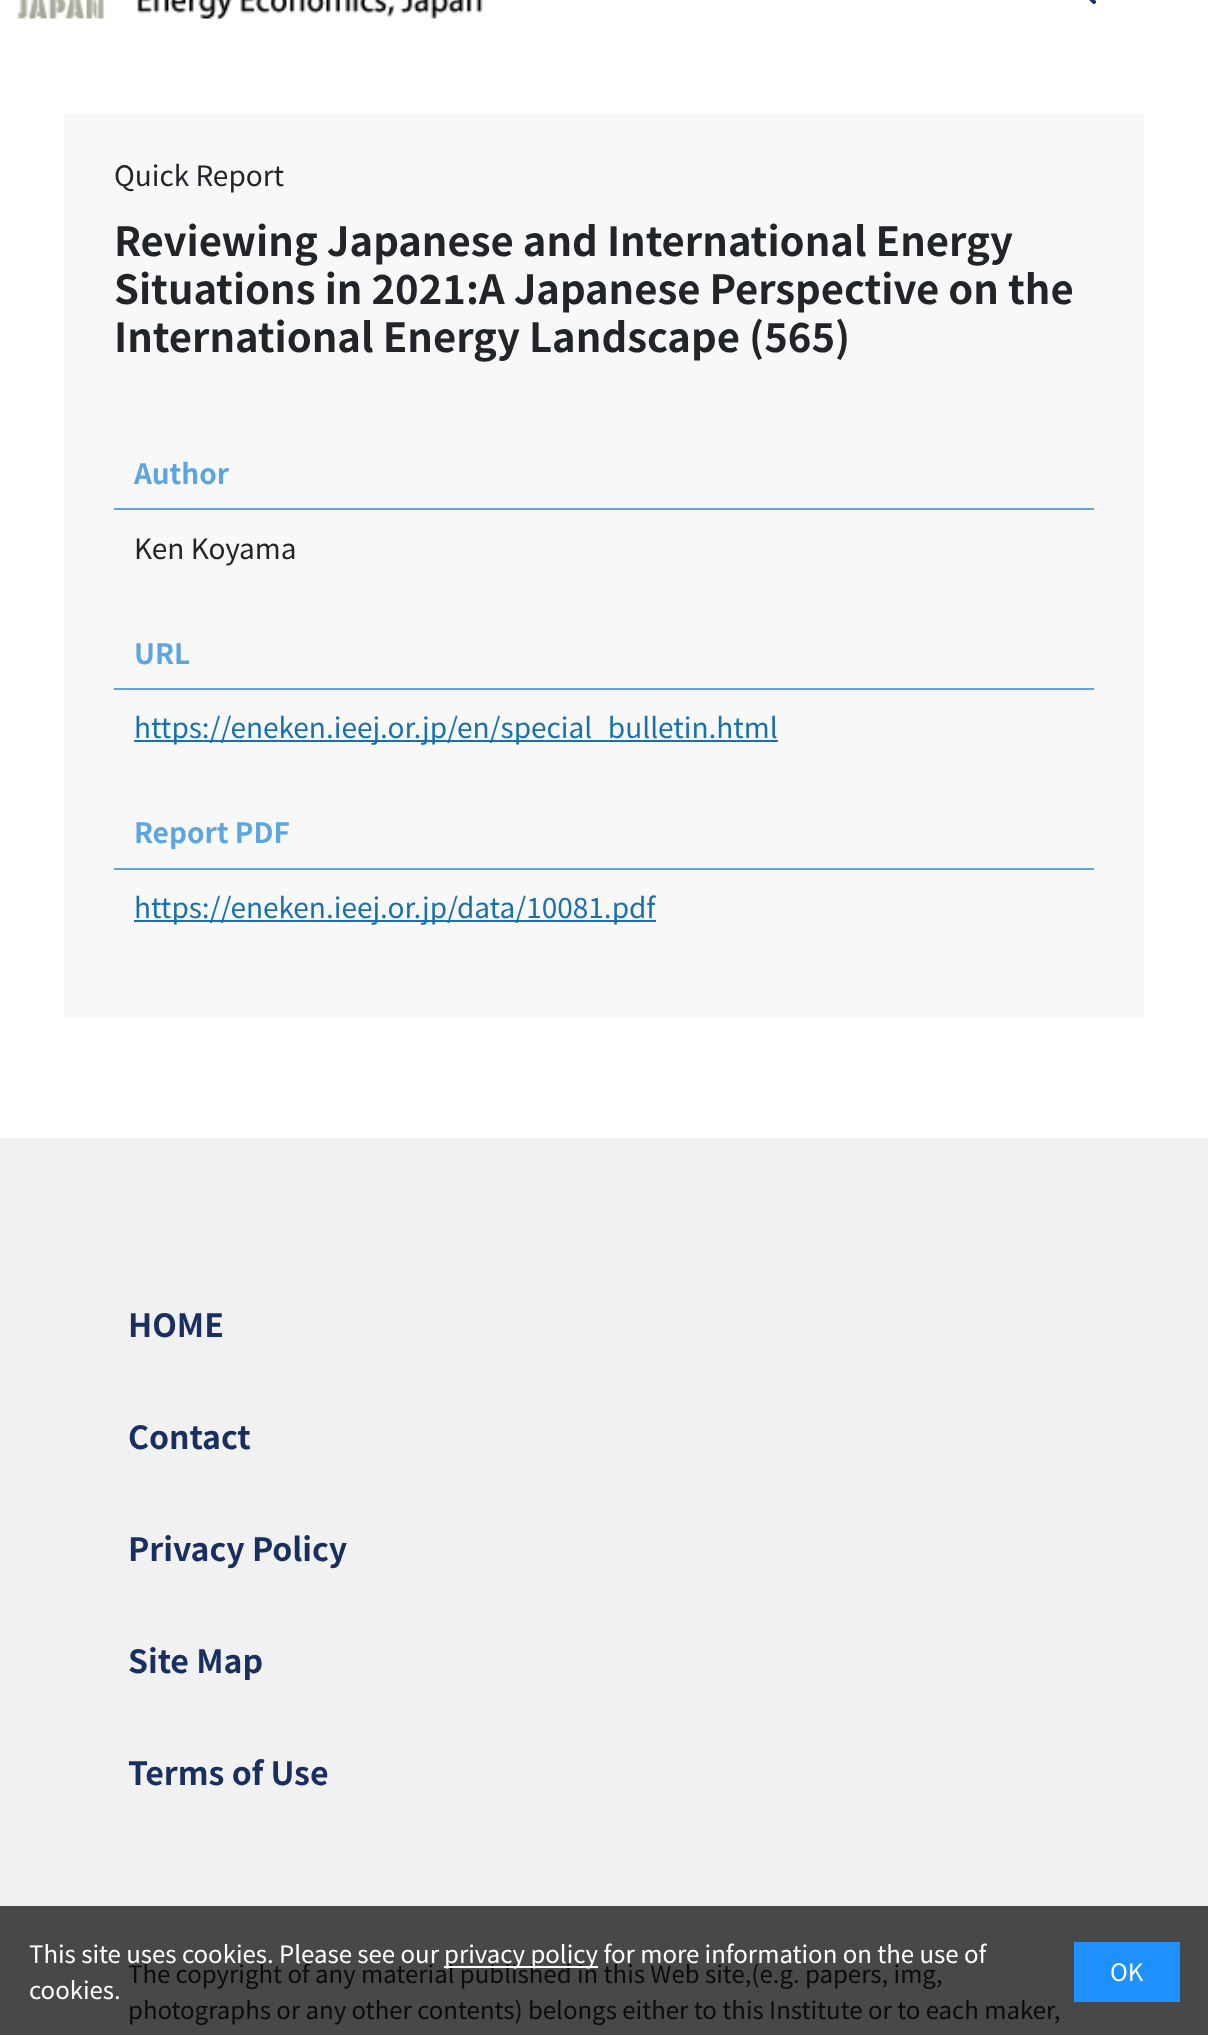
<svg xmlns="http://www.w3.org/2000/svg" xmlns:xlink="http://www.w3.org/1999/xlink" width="1208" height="2035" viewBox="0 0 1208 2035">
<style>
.cls-1{font:28px Noto Sans JP;fill:#212529}
.cls-2{font:bold 40px Noto Sans JP;fill:#212529}
.cls-3{font:bold 28px Noto Sans JP;fill:#5da5e0}
.cls-4{font:28px Noto Sans JP;fill:#1870ac}
.cls-5{font:bold 32px Noto Sans JP;fill:#192f60}
.cls-6{font:24px Noto Sans JP;fill:#0a0b0c}
.cls-7{font:24px Noto Sans JP;fill:#ffffff}
</style>
<rect width="100%" height="100%" fill="#ffffff"/>
<image xlink:href="image0.png" x="18" y="0" width="465" height="21"/>
<image xlink:href="image1.png" x="1089" y="0" width="7" height="4"/>
<rect fill="#f8f8f8" x="64" y="114" width="1080" height="904"/>
<rect fill="#5da5e0" x="114" y="508" width="980" height="2"/>
<rect fill="#5da5e0" x="114" y="688" width="980" height="2"/>
<rect fill="#1870ac" x="134" y="740" width="644" height="2"/>
<rect fill="#5da5e0" x="114" y="868" width="980" height="2"/>
<rect fill="#1870ac" x="134" y="920" width="522" height="2"/>
<rect fill="#f1f1f1" x="0" y="1138" width="1208" height="768"/>
<rect fill="#484848" x="0" y="1906" width="1208" height="129"/>
<rect fill="#1e90ff" x="1074" y="1942" width="106" height="60"/>
<text class="cls-1" x="114" y="186">Quick Report</text>
<text class="cls-2"><tspan x="114" y="256">Reviewing Japanese and International Energy</tspan><tspan x="114" y="304">Situations in 2021:A Japanese Perspective on the</tspan><tspan x="114" y="352">International Energy Landscape (565)</tspan></text>
<text class="cls-3" x="134" y="484">Author</text>
<text class="cls-1" x="134" y="559">Ken Koyama</text>
<text class="cls-3" x="134" y="664">URL</text>
<text class="cls-4" x="134" y="738">https://eneken.ieej.or.jp/en/special_bulletin.html</text>
<text class="cls-3" x="134" y="843">Report PDF</text>
<text class="cls-4" x="134" y="918">https://eneken.ieej.or.jp/data/10081.pdf</text>
<text class="cls-5" x="128" y="1337">HOME</text>
<text class="cls-5" x="128" y="1449">Contact</text>
<text class="cls-5" x="128" y="1561">Privacy Policy</text>
<text class="cls-5" x="128" y="1673">Site Map</text>
<text class="cls-5" x="128" y="1785">Terms of Use</text>
<text class="cls-6"><tspan x="128" y="1983">The copyright of any material published in this Web site,(e.g. papers, img,</tspan><tspan x="128" y="2019">photographs or any other contents) belongs either to this Institute or to each maker,</tspan></text>
<text class="cls-7" x="29" y="1963">This site uses cookies. Please see our</text>
<rect fill="#ffffff" x="444" y="1966" width="154" height="2"/>
<text class="cls-7" x="444" y="1963">privacy policy for more information on the use of</text>
<text class="cls-7" x="29" y="1999">cookies.</text>
<text class="cls-7" x="1110" y="1981">OK</text>
</svg>
